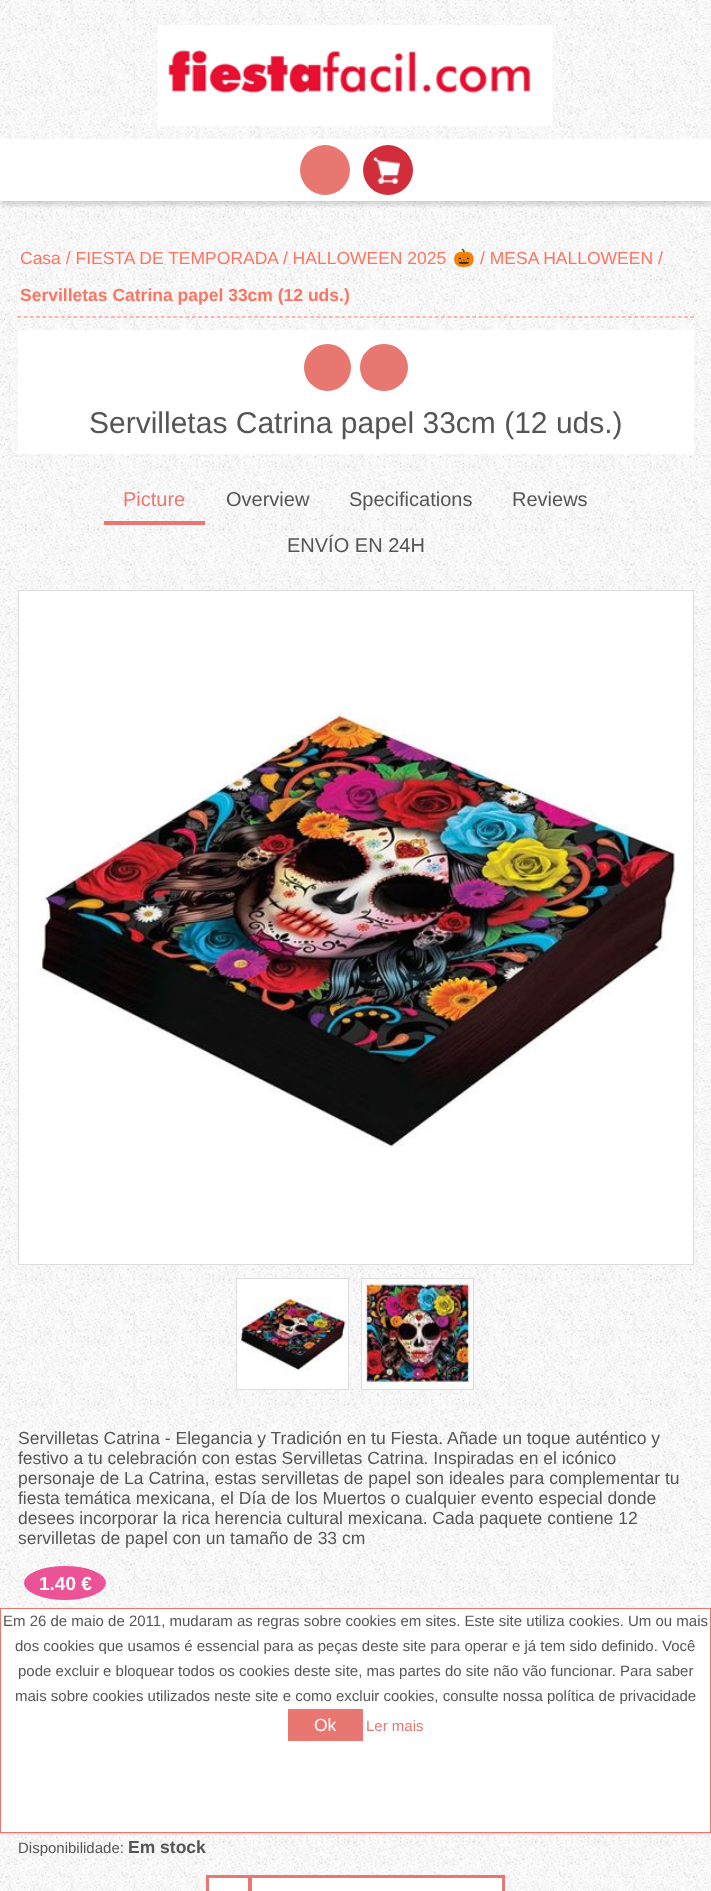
<svg xmlns="http://www.w3.org/2000/svg" xmlns:xlink="http://www.w3.org/1999/xlink" width="711" height="1891" viewBox="0 0 711 1891">
<style>
.cls-1{font:17.5px Liberation Sans;fill:#fa7663}
.cls-2{font:17.5px Noto Color Emoji;fill:#fa7663}
.cls-3{font:bold 17.5px Liberation Sans;fill:#fa7663}
.cls-4{font:30px Liberation Sans;fill:#555555}
.cls-5{font:20px Liberation Sans;fill:#e87772}
.cls-6{font:20px Liberation Sans;fill:#555555}
.cls-7{font:17.5px Liberation Sans;fill:#555555}
.cls-8{font:bold 19px Liberation Sans;fill:#ffffff}
.cls-9{font:15px Liberation Sans;fill:#555555}
.cls-10{font:bold 17.5px Liberation Sans;fill:#555555}
.cls-11{font:17.5px Liberation Sans;fill:#ffffff}
.cls-12{font:15px Liberation Sans;fill:#e87772}
</style>
<rect width="100%" height="100%" fill="#ffffff"/>
<image xlink:href="image0.png" x="0" y="0" width="711" height="1891"/>
<image xlink:href="image1.png" x="157" y="25" width="396" height="102"/>
<rect fill="#000000" fill-opacity="0.15" filter="blur(2px)" x="0" y="143" width="711" height="62"/>
<rect fill="#ffffff" x="0" y="139" width="711" height="62"/>
<circle fill="#e87772" cx="325" cy="170" r="25"/>
<circle fill="#d12e3c" cx="388" cy="170" r="25"/>
<image xlink:href="image2.png" x="373" y="157" width="27" height="27"/>
<path fill="none" stroke="#fa7663" stroke-width="1.2" stroke-dasharray="3.75 2.48" d="M17.5 317H694"/>
<rect fill="#ffffff" x="18" y="330" width="676" height="124"/>
<circle fill="#e87772" cx="327.5" cy="367.5" r="23.5"/>
<rect fill="#e87772" x="360" y="344" width="48" height="47" rx="23.5"/>
<rect fill="#e87772" x="104" y="521" width="101" height="4"/>
<rect fill="#ffffff" stroke="#dddddd" x="18.5" y="590.5" width="675" height="674"/>
<image xlink:href="image3.png" x="37" y="708" width="638" height="439"/>
<rect fill="#ffffff" stroke="#dddddd" x="236.5" y="1278.5" width="112" height="111"/>
<image xlink:href="image4.png" x="238" y="1297" width="110" height="75"/>
<rect fill="#ffffff" stroke="#dddddd" x="361.5" y="1278.5" width="112" height="111"/>
<image xlink:href="image5.png" x="362" y="1279" width="111" height="110"/>
<ellipse fill="#ec5296" cx="65" cy="1583" rx="41" ry="17"/>
<rect fill="#ffffff" stroke="#e87772" stroke-width="3" x="207.5" y="1876.5" width="42" height="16"/>
<rect fill="#ffffff" stroke="#e87772" stroke-width="3" x="250.5" y="1876.5" width="253" height="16"/>
<image xlink:href="image6.png" x="604" y="1833" width="2" height="1"/>
<rect fill="#cccccc" filter="blur(1px)" x="0" y="1609" width="711" height="225"/>
<rect fill="#ffffff" stroke="#e87772" x="0.5" y="1608.5" width="710" height="224"/>
<rect fill="#e87772" x="288" y="1709" width="75" height="32"/>
<text class="cls-1" x="20" y="264">Casa / FIESTA DE TEMPORADA / HALLOWEEN 2025</text>
<text class="cls-2" x="453" y="264">🎃</text>
<text class="cls-1" x="480" y="264">/ MESA HALLOWEEN /</text>
<text class="cls-3" x="20" y="301">Servilletas Catrina papel 33cm (12 uds.)</text>
<text class="cls-4" x="89" y="433">Servilletas Catrina papel 33cm (12 uds.)</text>
<text class="cls-5" x="123" y="506">Picture</text>
<text class="cls-6" x="226" y="506">Overview</text>
<text class="cls-6" x="349" y="506">Specifications</text>
<text class="cls-6" x="512" y="506">Reviews</text>
<text class="cls-6" x="287" y="552">ENVÍO EN 24H</text>
<text class="cls-7"><tspan x="18" y="1444">Servilletas Catrina - Elegancia y Tradición en tu Fiesta. Añade un toque auténtico y</tspan><tspan x="18" y="1464">festivo a tu celebración con estas Servilletas Catrina. Inspiradas en el icónico</tspan><tspan x="18" y="1484">personaje de La Catrina, estas servilletas de papel son ideales para complementar tu</tspan><tspan x="18" y="1504">fiesta temática mexicana, el Día de los Muertos o cualquier evento especial donde</tspan><tspan x="18" y="1524">desees incorporar la rica herencia cultural mexicana. Cada paquete contiene 12</tspan><tspan x="18" y="1544">servilletas de papel con un tamaño de 33 cm</tspan></text>
<text class="cls-8" x="39" y="1590">1.40 €</text>
<text class="cls-9" x="18" y="1853">Disponibilidade:</text>
<text class="cls-10" x="128" y="1853">Em stock</text>
<text class="cls-9" x="3" y="1626">Em 26 de maio de 2011, mudaram as regras sobre cookies em sites. Este site utiliza cookies. Um ou mais</text>
<text class="cls-9" x="15" y="1651">dos cookies que usamos é essencial para as peças deste site para operar e já tem sido definido. Você</text>
<text class="cls-9" x="18" y="1676">pode excluir e bloquear todos os cookies deste site, mas partes do site não vão funcionar. Para saber</text>
<text class="cls-9" x="15" y="1701">mais sobre cookies utilizados neste site e como excluir cookies, consulte nossa política de privacidade</text>
<text class="cls-11" x="314" y="1731">Ok</text>
<text class="cls-12" x="366" y="1731">Ler mais</text>
</svg>
